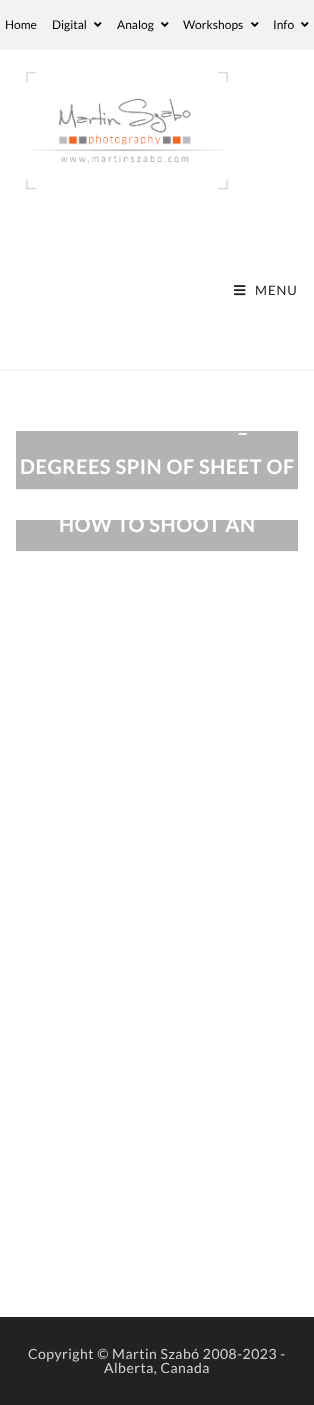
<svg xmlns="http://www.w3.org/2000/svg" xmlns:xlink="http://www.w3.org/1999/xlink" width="314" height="1405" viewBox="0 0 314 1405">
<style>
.cls-1{font:12px Lato;fill:#000000}
.cls-2{font:13px Lato;letter-spacing:1px;fill:#222222}
.cls-3{font:bold 20px Lato;letter-spacing:0.5px;fill:#ffffff}
.cls-4{font:14px Lato;letter-spacing:0.5px;fill:#d3d3d3}
</style>
<rect width="100%" height="100%" fill="#ffffff"/>
<rect fill="#f2f2f2" x="0" y="0" width="314" height="50"/>
<image xlink:href="image0.png" x="94" y="22" width="8" height="5"/>
<image xlink:href="image0.png" x="161" y="22" width="8" height="5"/>
<image xlink:href="image0.png" x="251" y="22" width="8" height="5"/>
<image xlink:href="image0.png" x="301" y="22" width="8" height="5"/>
<rect fill="#f2f2f2" x="0" y="370" width="314" height="1"/>
<image xlink:href="image1.png" x="26" y="71" width="203" height="119"/>
<image xlink:href="image2.png" x="234" y="285" width="12" height="11"/>
<rect fill="#f1f1f1" x="16" y="489" width="282" height="1"/>
<rect fill="#b3b3b3" x="16" y="431" width="282" height="58"/>
<rect fill="#f1f1f1" x="16" y="551" width="282" height="1"/>
<rect fill="#b3b3b3" x="16" y="520" width="282" height="31"/>
<rect fill="#222222" x="0" y="1317" width="314" height="88"/>
<text class="cls-1" x="5" y="29">Home</text>
<text class="cls-1" x="52" y="29">Digital</text>
<text class="cls-1" x="117" y="29">Analog</text>
<text class="cls-1" x="183" y="29">Workshops</text>
<text class="cls-1" x="273" y="29">Info</text>
<text class="cls-2" x="255" y="295">MENU</text>
<text class="cls-3" x="237" y="440">–</text>
<text class="cls-3" x="20" y="474">DEGREES SPIN OF SHEET OF</text>
<text class="cls-3" x="59" y="532">HOW TO SHOOT AN</text>
<text class="cls-4" x="28" y="1359">Copyright © Martin Szabó 2008-2023 -</text>
<text class="cls-4" x="104" y="1373">Alberta, Canada</text>
</svg>
